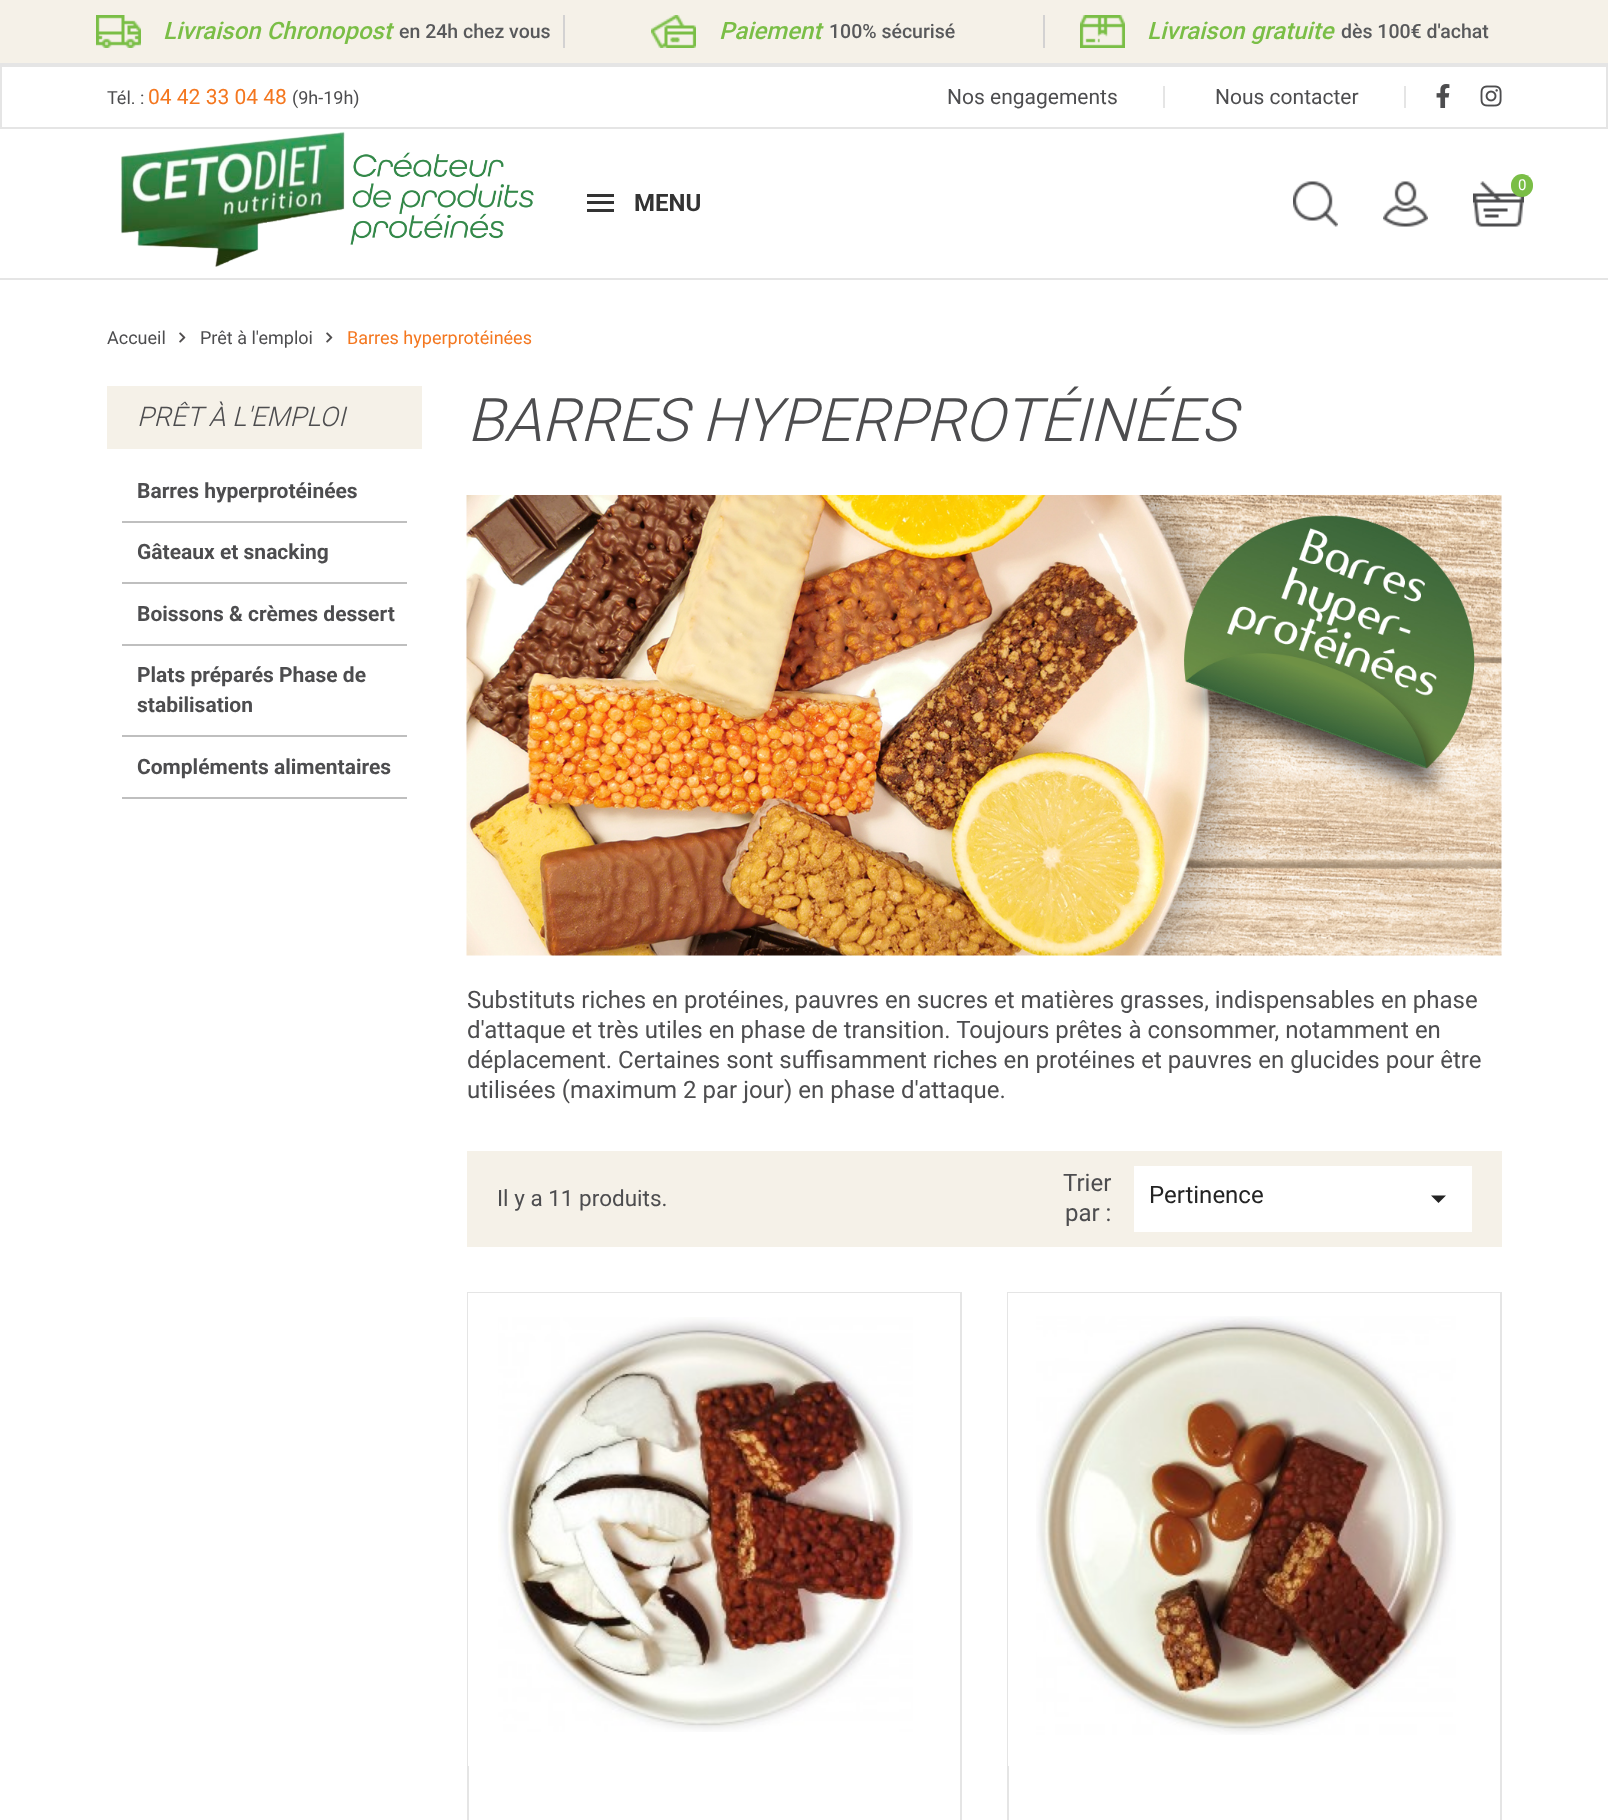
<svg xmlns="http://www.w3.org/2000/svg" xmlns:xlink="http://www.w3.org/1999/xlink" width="1608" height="1820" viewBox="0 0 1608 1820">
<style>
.cls-1{font:italic 500 24px Roboto;fill:#7abe46}
.cls-2{font:500 19.5px Roboto;fill:#58595b}
.cls-3{font:18px Roboto;fill:#4d4d4f}
.cls-4{font:21px Roboto;fill:#f4771f}
.cls-5{font:21px Roboto;fill:#4d4d4f}
.cls-6{font:bold 24px Roboto;fill:#333333}
.cls-7{font:15px Roboto;fill:#ffffff}
.cls-8{font:18px Roboto;fill:#f4771f}
.cls-9{font:italic 300 27px Roboto;fill:#4d4d4f}
.cls-10{font:bold 21px Roboto;fill:#4d4d4f}
.cls-11{font:italic 300 60px Roboto;fill:#4d4d4f}
.cls-12{font:24px Roboto;fill:#4d4d4f}
.cls-13{font:22.5px Roboto;fill:#4d4d4f}
.cls-14{font:24px Roboto;fill:#232323}
</style>
<rect width="100%" height="100%" fill="#ffffff"/>
<rect fill="#e5e5e5" x="0" y="278" width="1608" height="2"/>
<rect fill="#f5f1e8" x="0" y="0" width="1608" height="63"/>
<rect fill="#e5e5e5" x="0" y="63" width="1608" height="2"/>
<rect fill="#d3d2d2" x="563" y="15" width="2" height="33"/>
<image xlink:href="image0.png" x="96" y="15" width="45" height="33"/>
<rect fill="#d3d2d2" x="1043" y="15" width="2" height="33"/>
<image xlink:href="image1.png" x="651" y="15" width="45" height="33"/>
<image xlink:href="image2.png" x="1080" y="15" width="45" height="33"/>
<rect fill="none" stroke="#e5e5e5" stroke-width="2" x="1" y="66" width="1606" height="62"/>
<rect fill="#e5e5e5" x="1163" y="86" width="2" height="22"/>
<rect fill="#e5e5e5" x="1404" y="86" width="2" height="22"/>
<image xlink:href="image3.png" x="1436" y="84" width="14" height="24"/>
<image xlink:href="image4.png" x="1480" y="85" width="22" height="22"/>
<image xlink:href="image5.png" x="120" y="131" width="414" height="136"/>
<rect fill="#333333" x="587" y="194" width="27" height="3"/>
<rect fill="#333333" x="587" y="201" width="27" height="3"/>
<rect fill="#333333" x="587" y="209" width="27" height="3"/>
<image xlink:href="image6.png" x="1293" y="181" width="45" height="46"/>
<image xlink:href="image7.png" x="1383" y="181" width="45" height="46"/>
<image xlink:href="image8.png" x="1473" y="181" width="51" height="46"/>
<rect fill="#7abe46" x="1511" y="174" width="22" height="23" rx="11"/>
<image xlink:href="image9.png" x="179" y="332" width="7" height="11"/>
<image xlink:href="image9.png" x="326" y="332" width="7" height="11"/>
<rect fill="#f5f1e8" x="107" y="386" width="315" height="63"/>
<rect fill="#bfbfbf" x="122" y="521" width="285" height="2"/>
<rect fill="#bfbfbf" x="122" y="582" width="285" height="2"/>
<rect fill="#bfbfbf" x="122" y="644" width="285" height="2"/>
<rect fill="#bfbfbf" x="122" y="735" width="285" height="2"/>
<rect fill="#bfbfbf" x="122" y="797" width="285" height="2"/>
<image xlink:href="image10.png" x="466" y="495" width="1036" height="461"/>
<rect fill="#f5f1e8" x="467" y="1151" width="1035" height="96"/>
<rect fill="#ffffff" x="1134" y="1166" width="338" height="66"/>
<path fill="#232323" d="M1431 1195.5H1446L1438.5 1203Z"/>
<rect fill="none" stroke="#e5e5e5" stroke-width="2" x="468" y="1293" width="493" height="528"/>
<rect fill="#ffffff" x="468" y="1293" width="492" height="473"/>
<image xlink:href="image11.png" x="498" y="1317" width="415" height="415"/>
<rect fill="none" stroke="#e5e5e5" stroke-width="2" x="1008" y="1293" width="493" height="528"/>
<rect fill="#ffffff" x="1008" y="1293" width="492" height="473"/>
<image xlink:href="image12.png" x="1036" y="1316" width="420" height="419"/>
<text class="cls-1" x="163" y="39">Livraison Chronopost</text>
<text class="cls-2" x="399" y="38">en 24h chez vous</text>
<text class="cls-1" x="719" y="39">Paiement</text>
<text class="cls-2" x="829" y="38">100% sécurisé</text>
<text class="cls-1" x="1147" y="39">Livraison gratuite</text>
<text class="cls-2" x="1341" y="38">dès 100€ d'achat</text>
<text class="cls-3" x="107" y="104">Tél. :</text>
<text class="cls-4" x="148" y="104">04 42 33 04 48</text>
<text class="cls-3" x="292" y="104">(9h-19h)</text>
<text class="cls-5" x="947" y="104">Nos engagements</text>
<text class="cls-5" x="1215" y="104">Nous contacter</text>
<text class="cls-6" x="634" y="211">MENU</text>
<text class="cls-7" x="1518" y="190">0</text>
<text class="cls-3" x="107" y="344">Accueil</text>
<text class="cls-3" x="200" y="344">Prêt à l'emploi</text>
<text class="cls-8" x="347" y="344">Barres hyperprotéinées</text>
<text class="cls-9" x="137" y="426">PRÊT À L'EMPLOI</text>
<text class="cls-10" x="137" y="498">Barres hyperprotéinées</text>
<text class="cls-10" x="137" y="559">Gâteaux et snacking</text>
<text class="cls-10" x="137" y="621">Boissons &amp; crèmes dessert</text>
<text class="cls-10"><tspan x="137" y="682">Plats préparés Phase de</tspan><tspan x="137" y="712">stabilisation</tspan></text>
<text class="cls-10" x="137" y="774">Compléments alimentaires</text>
<text class="cls-11" x="467" y="441">BARRES HYPERPROTÉINÉES</text>
<text class="cls-12"><tspan x="467" y="1008">Substituts riches en protéines, pauvres en sucres et matières grasses, indispensables en phase</tspan><tspan x="467" y="1038">d'attaque et très utiles en phase de transition. Toujours prêtes à consommer, notamment en</tspan><tspan x="467" y="1068">déplacement. Certaines sont suffisamment riches en protéines et pauvres en glucides pour être</tspan><tspan x="467" y="1098">utilisées (maximum 2 par jour) en phase d'attaque.</tspan></text>
<text class="cls-13" x="497" y="1206">Il y a 11 produits.</text>
<text class="cls-12" x="1063" y="1191">Trier</text>
<text class="cls-12" x="1065" y="1221">par :</text>
<text class="cls-14" x="1149" y="1203">Pertinence</text>
</svg>
